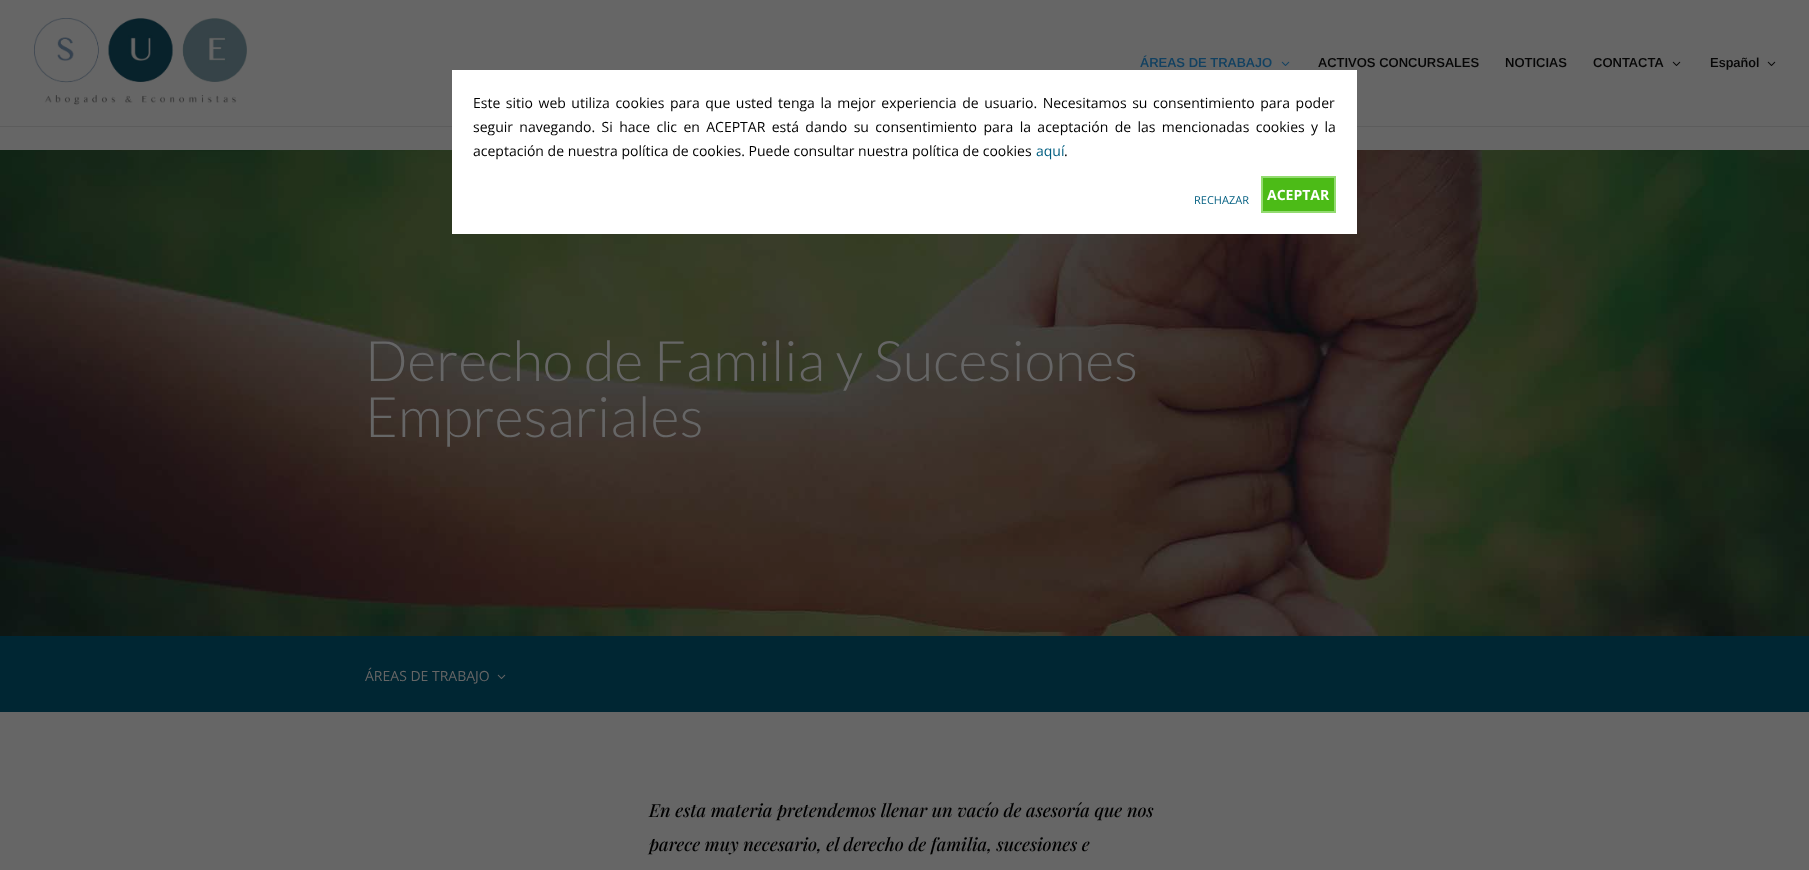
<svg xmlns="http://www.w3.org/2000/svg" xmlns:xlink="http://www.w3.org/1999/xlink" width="1809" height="870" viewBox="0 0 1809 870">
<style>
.cls-1{font:600 13px Arimo;fill:#124161}
.cls-2{font:600 13px Arimo;fill:#070707}
.cls-3{font:300 56px Lato;fill:#666666}
.cls-4{font:14px Open Sans;fill:#666666}
.cls-5{font:italic 500 18px Playfair Display;fill:#000000}
.cls-6{font:14px Open Sans;fill:#000000}
.cls-7{font:14px Open Sans;fill:#015e80}
.cls-8{font:11px Open Sans;fill:#015e80}
.cls-9{font:bold 14px Open Sans;fill:#ffffff}
</style>
<rect width="100%" height="100%" fill="#666666"/>
<rect fill="#5c5c5c" x="0" y="126" width="1809" height="1"/>
<image xlink:href="image0.png" x="34" y="18" width="213" height="87"/>
<image xlink:href="image1.png" x="1281" y="61" width="9" height="5"/>
<image xlink:href="image2.png" x="1672" y="61" width="9" height="5"/>
<image xlink:href="image2.png" x="1767" y="61" width="9" height="5"/>
<image xlink:href="image3.png" x="0" y="150" width="1809" height="486"/>
<rect fill="#002633" x="0" y="636" width="1809" height="76"/>
<image xlink:href="image4.png" x="497" y="674" width="9" height="5"/>
<rect fill="#ffffff" x="452" y="70" width="905" height="164"/>
<rect fill="#4cbb17" stroke="#93db70" stroke-width="2" x="1262" y="177" width="73" height="35"/>
<text class="cls-1" x="1140" y="67">ÁREAS DE TRABAJO</text>
<text class="cls-2" x="1318" y="67">ACTIVOS CONCURSALES</text>
<text class="cls-2" x="1505" y="67">NOTICIAS</text>
<text class="cls-2" x="1593" y="67">CONTACTA</text>
<text class="cls-2" x="1710" y="67">Español</text>
<text class="cls-3"><tspan x="365" y="381">Derecho de Familia y Sucesiones</tspan><tspan x="365" y="437">Empresariales</tspan></text>
<text class="cls-4" x="365" y="681">ÁREAS DE TRABAJO</text>
<text class="cls-5"><tspan x="649" y="817">En esta materia pretendemos llenar un vacío de asesoría que nos</tspan><tspan x="649" y="851">parece muy necesario, el derecho de familia, sucesiones e</tspan></text>
<text class="cls-6"><tspan x="473" y="108" word-spacing="1.9">Este sitio web utiliza cookies para que usted tenga la mejor experiencia de usuario. Necesitamos su consentimiento para poder</tspan><tspan x="473" y="132" word-spacing="2.75">seguir navegando. Si hace clic en ACEPTAR está dando su consentimiento para la aceptación de las mencionadas cookies y la</tspan><tspan x="473" y="156">aceptación de nuestra política de cookies. Puede consultar nuestra política de cookies</tspan></text>
<text class="cls-7" x="1036" y="156">aquí</text>
<text class="cls-6" x="1064" y="156">.</text>
<text class="cls-8" x="1194" y="204">RECHAZAR</text>
<text class="cls-9" x="1267" y="200">ACEPTAR</text>
</svg>
